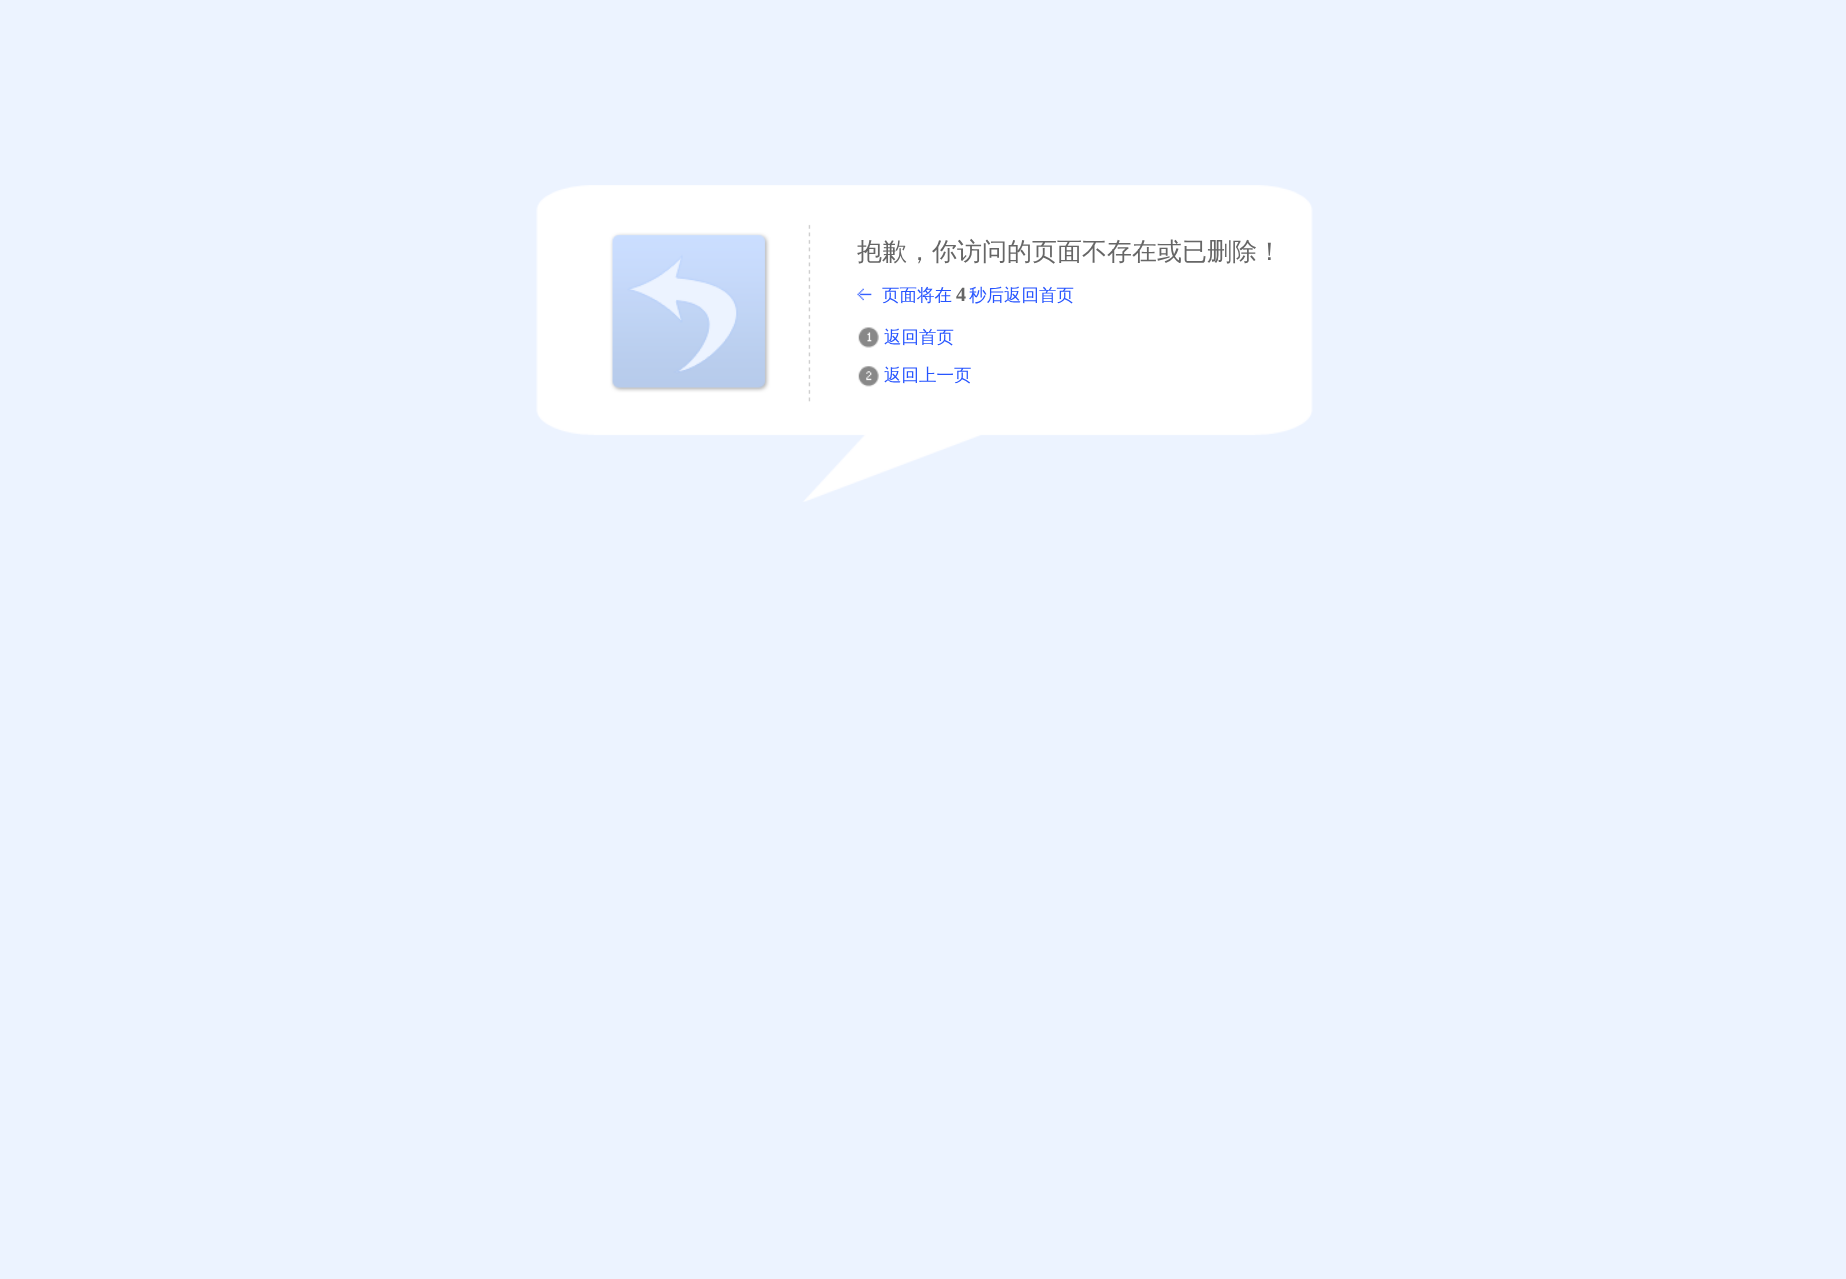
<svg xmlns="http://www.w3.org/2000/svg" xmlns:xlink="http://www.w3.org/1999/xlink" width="1846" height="1279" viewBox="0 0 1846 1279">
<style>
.cls-1{font:500 25px WenQuanYi Zen Hei;fill:#666666}
.cls-2{font:500 17.5px WenQuanYi Zen Hei;fill:#2755ff}
.cls-3{font:bold 20px Liberation Serif;fill:#666666}
</style>
<rect width="100%" height="100%" fill="#ecf3ff"/>
<image xlink:href="image0.png" x="536" y="185" width="777" height="317"/>
<text class="cls-1" x="857" y="260">抱歉，你访问的页面不存在或已删除！</text>
<text class="cls-2" x="882" y="301">页面将在</text>
<text class="cls-3" x="956" y="301">4</text>
<text class="cls-2" x="969" y="301">秒后返回首页</text>
<text class="cls-2" x="884" y="343">返回首页</text>
<text class="cls-2" x="884" y="381">返回上一页</text>
</svg>
